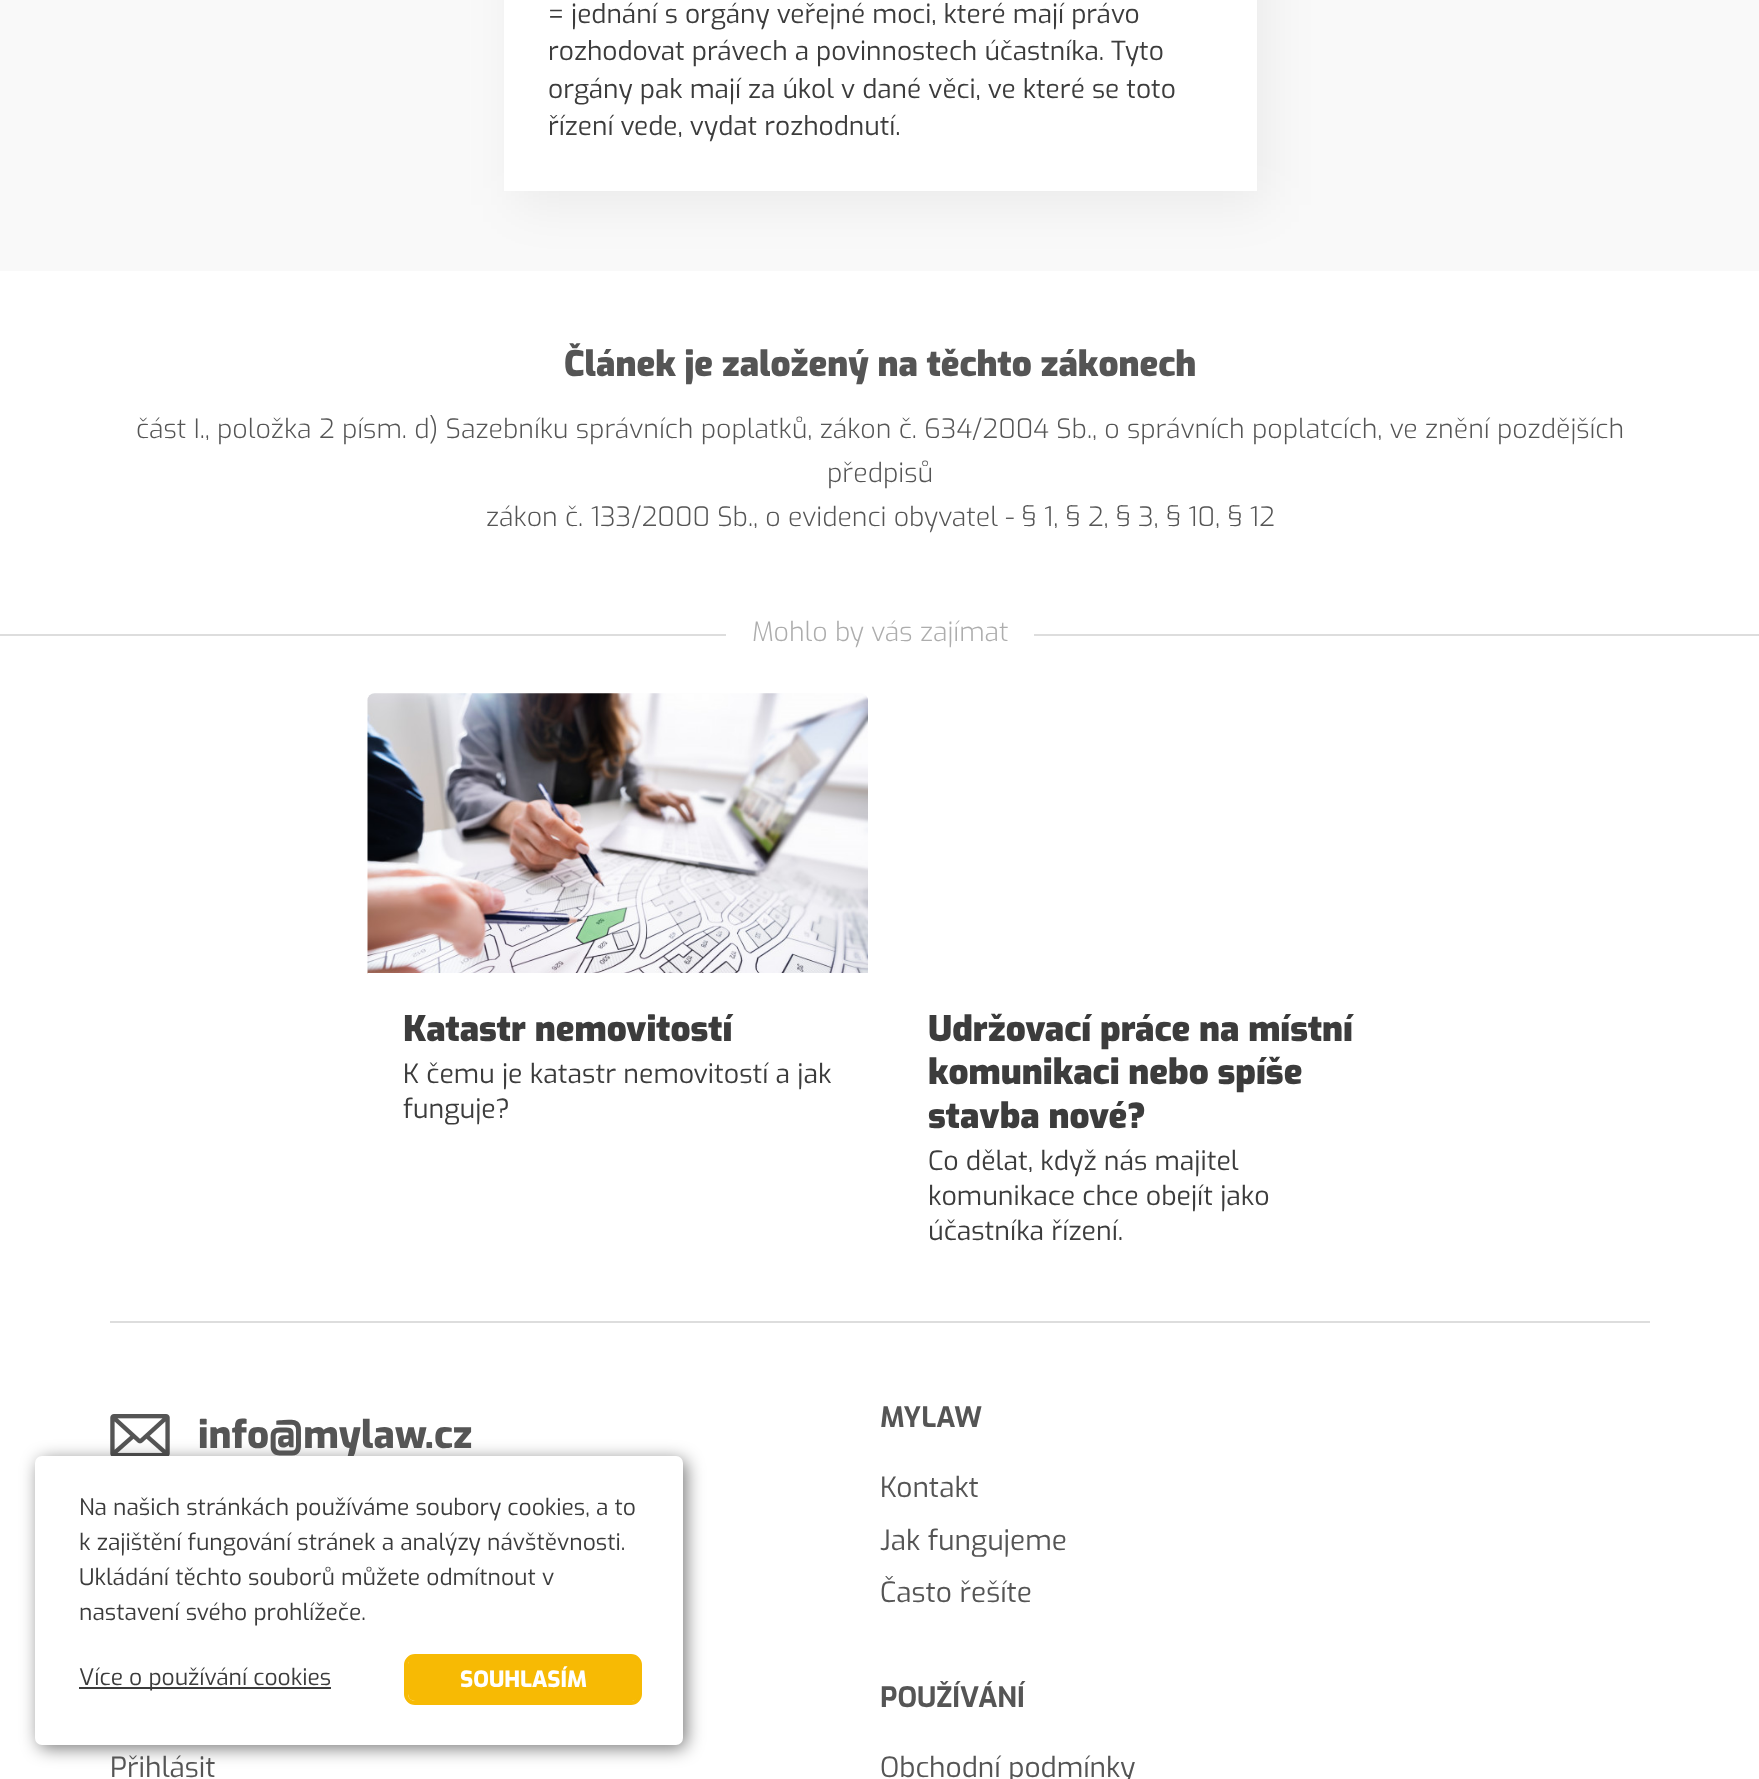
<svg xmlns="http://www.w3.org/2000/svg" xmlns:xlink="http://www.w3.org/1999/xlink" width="1759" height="1779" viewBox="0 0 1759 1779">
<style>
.cls-1{font:26.25px Exo;fill:#3c3c3c}
.cls-2{font:900 35px Exo;fill:#555555}
.cls-3{font:300 26.67px Exo;fill:#555555}
.cls-4{font:300 26.67px Exo;fill:#adadad}
.cls-5{font:900 35px Exo;fill:#3c3c3c}
.cls-6{font:26.67px Exo;fill:#3c3c3c}
.cls-7{font:800 38.5px Exo;fill:#555555}
.cls-8{font:bold 28px Exo;fill:#555555}
.cls-9{font:28px Exo;fill:#555555}
.cls-10{font:22.75px Exo;fill:#3c3c3c}
.cls-11{font:800 22.25px Exo;fill:#ffffff}
</style>
<rect width="100%" height="100%" fill="#ffffff"/>
<rect fill="#f9f9f9" x="0" y="0" width="1759" height="271"/>
<rect fill="#000100" fill-opacity="0.06" filter="blur(25.5px)" x="515" y="-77" width="752" height="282"/>
<rect fill="#ffffff" x="504" y="0" width="753" height="191"/>
<rect fill="#dddddd" x="0" y="634" width="1759" height="2"/>
<rect fill="#ffffff" x="726" y="634" width="308" height="2"/>
<image xlink:href="image0.png" x="367" y="693" width="501" height="281"/>
<rect fill="#ffffff" x="368" y="973" width="500" height="1"/>
<rect fill="#dddddd" x="110" y="1321" width="1540" height="2"/>
<image xlink:href="image1.png" x="110" y="1414" width="60" height="42"/>
<rect fill="#000000" fill-opacity="0.54" filter="blur(9px)" x="39" y="1460" width="647" height="288" rx="7"/>
<text class="cls-1"><tspan x="548" y="23">= jednání s orgány veřejné moci, které mají právo</tspan><tspan x="548" y="60">rozhodovat právech a povinnostech účastníka. Tyto</tspan><tspan x="548" y="98">orgány pak mají za úkol v dané věci, ve které se toto</tspan><tspan x="548" y="135">řízení vede, vydat rozhodnutí.</tspan></text>
<text class="cls-2" x="564" y="376">Článek je založený na těchto zákonech</text>
<text class="cls-3" x="136" y="438">část I., položka 2 písm. d) Sazebníku správních poplatků, zákon č. 634/2004 Sb., o správních poplatcích, ve znění pozdějších</text>
<text class="cls-3" x="827" y="482">předpisů</text>
<text class="cls-3" x="486" y="526">zákon č. 133/2000 Sb., o evidenci obyvatel - § 1, § 2, § 3, § 10, § 12</text>
<text class="cls-4" x="752" y="641">Mohlo by vás zajímat</text>
<text class="cls-5" x="403" y="1041">Katastr nemovitostí</text>
<text class="cls-6"><tspan x="403" y="1083">K čemu je katastr nemovitostí a jak</tspan><tspan x="403" y="1118">funguje?</tspan></text>
<text class="cls-5"><tspan x="928" y="1041">Udržovací práce na místní</tspan><tspan x="928" y="1084">komunikaci nebo spíše</tspan><tspan x="928" y="1128">stavba nové?</tspan></text>
<text class="cls-6"><tspan x="928" y="1170">Co dělat, když nás majitel</tspan><tspan x="928" y="1205">komunikace chce obejít jako</tspan><tspan x="928" y="1240">účastníka řízení.</tspan></text>
<text class="cls-7" x="198" y="1448">info@mylaw.cz</text>
<text class="cls-8" x="880" y="1427">MYLAW</text>
<text class="cls-9"><tspan x="880" y="1497">Kontakt</tspan><tspan x="880" y="1550">Jak fungujeme</tspan><tspan x="880" y="1602">Často řešíte</tspan></text>
<text class="cls-9" x="110" y="1777">Přihlásit</text>
<text class="cls-8" x="880" y="1707">POUŽÍVÁNÍ</text>
<text class="cls-9" x="880" y="1777">Obchodní podmínky</text>
<rect fill="#ffffff" x="35" y="1456" width="648" height="289" rx="7"/>
<text class="cls-10"><tspan x="79" y="1515">Na našich stránkách používáme soubory cookies, a to</tspan><tspan x="79" y="1550">k zajištění fungování stránek a analýzy návštěvnosti.</tspan><tspan x="79" y="1585">Ukládání těchto souborů můžete odmítnout v</tspan><tspan x="79" y="1620">nastavení svého prohlížeče.</tspan></text>
<rect fill="#3c3c3c" x="79" y="1687" width="252" height="2"/>
<text class="cls-10" x="79" y="1685">Více o používání cookies</text>
<rect fill="none" stroke="#f7ba04" stroke-width="4" x="406" y="1656" width="234" height="47" rx="9"/>
<rect fill="#f7ba04" x="408" y="1657" width="231" height="44" rx="7"/>
<text class="cls-11" x="460" y="1687">SOUHLASÍM</text>
</svg>
